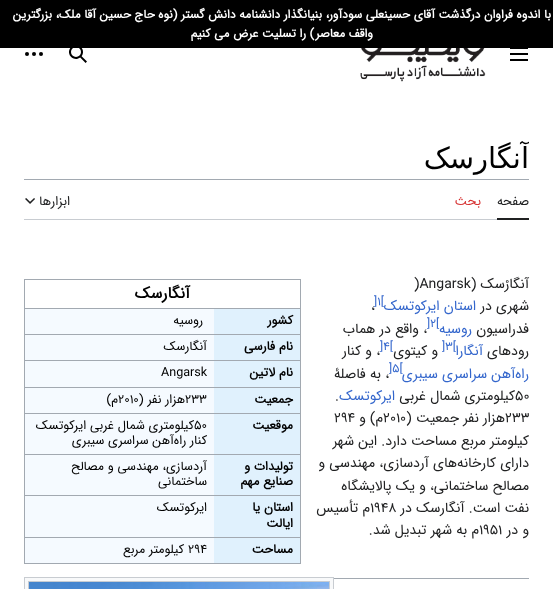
<svg xmlns="http://www.w3.org/2000/svg" xmlns:xlink="http://www.w3.org/1999/xlink" width="553" height="589" viewBox="0 0 553 589">
<style>
.cls-1{font:bold 12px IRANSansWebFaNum;direction:rtl;fill:#ffffff}
.cls-2{font:29px DejaVu Sans;direction:rtl;fill:#000000}
.cls-3{font:13px IRANSansWebFaNum;direction:rtl;fill:#202122}
.cls-4{font:13px IRANSansWebFaNum;direction:rtl;fill:#d73333}
.cls-5{font:14px IRANSansWebFaNum;direction:rtl;fill:#202122}
.cls-6{font:14px IRANSansWebFaNum;fill:#202122}
.cls-7{font:14px IRANSansWebFaNum;direction:rtl;fill:#3366cc}
.cls-8{font:12px IRANSansWebFaNum;fill:#3366cc}
.cls-9{font:bold 16px IRANSansWebFaNum;direction:rtl;fill:#000000}
.cls-10{font:bold 12.6px IRANSansWebFaNum;direction:rtl;fill:#000000}
.cls-11{font:12.6px IRANSansWebFaNum;direction:rtl;fill:#000000}
.cls-12{font:12.6px IRANSansWebFaNum;fill:#000000}
</style>
<defs>
<clipPath id="clip1"><rect x="24" y="139" width="505" height="40"/></clipPath>
</defs>
<rect width="100%" height="100%" fill="#ffffff"/>
<rect fill="#000000" x="0" y="0" width="553" height="48"/>
<image xlink:href="image0.png" x="510" y="48" width="18" height="13"/>
<image xlink:href="image1.png" x="360" y="48" width="126" height="34"/>
<image xlink:href="image2.png" x="69" y="48" width="18" height="15"/>
<image xlink:href="image3.png" x="25" y="52" width="18" height="4"/>
<rect fill="#a2a9b1" x="24" y="179" width="505" height="1"/>
<rect fill="#c8ccd1" x="24" y="219" width="473" height="1"/>
<rect fill="#202122" x="497" y="218" width="32" height="2"/>
<image xlink:href="image4.png" x="25" y="198" width="10" height="6"/>
<rect fill="#f5faff" x="25" y="309" width="189" height="254"/>
<rect fill="#a2a9b1" x="24" y="279" width="277" height="1"/>
<rect fill="#a2a9b1" x="300" y="279" width="1" height="285"/>
<rect fill="#a2a9b1" x="24" y="563" width="277" height="1"/>
<rect fill="#a2a9b1" x="24" y="279" width="1" height="285"/>
<rect fill="#e0f1fd" x="214" y="309" width="86" height="25"/>
<rect fill="#a2a9b1" x="24" y="308" width="277" height="1"/>
<rect fill="#e0f1fd" x="214" y="335" width="86" height="25"/>
<rect fill="#a2a9b1" x="24" y="334" width="277" height="1"/>
<rect fill="#e0f1fd" x="214" y="361" width="86" height="26"/>
<rect fill="#a2a9b1" x="24" y="360" width="277" height="1"/>
<rect fill="#e0f1fd" x="214" y="388" width="86" height="25"/>
<rect fill="#a2a9b1" x="24" y="387" width="277" height="1"/>
<rect fill="#e0f1fd" x="214" y="414" width="86" height="40"/>
<rect fill="#a2a9b1" x="24" y="413" width="277" height="1"/>
<rect fill="#e0f1fd" x="214" y="455" width="86" height="40"/>
<rect fill="#a2a9b1" x="24" y="454" width="277" height="1"/>
<rect fill="#e0f1fd" x="214" y="496" width="86" height="41"/>
<rect fill="#a2a9b1" x="24" y="495" width="277" height="1"/>
<rect fill="#e0f1fd" x="214" y="538" width="86" height="25"/>
<rect fill="#a2a9b1" x="24" y="537" width="277" height="1"/>
<rect fill="#a2a9b1" x="334" y="578" width="195" height="1"/>
<rect fill="#f8f9fa" x="25" y="578" width="308" height="11"/>
<rect fill="#c8ccd1" x="24" y="577" width="310" height="1"/>
<rect fill="#c8ccd1" x="333" y="577" width="1" height="12"/>
<rect fill="#c8ccd1" x="24" y="577" width="1" height="12"/>
<rect fill="none" stroke="#c8ccd1" x="28.5" y="581.5" width="301" height="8"/>
<image xlink:href="image5.png" x="29" y="582" width="300" height="7"/>
<text class="cls-1" x="551" y="18">با اندوه فراوان درگذشت آقای حسینعلی سودآور، بنیانگذار دانشنامه دانش گستر (نوه حاج حسین آقا ملک، بزرگترین</text>
<text class="cls-1" x="373" y="37">واقف معاصر) را تسلیت عرض می کنیم</text>
<g clip-path="url(#clip1)">
<text class="cls-2" x="529" y="168">آنگارسک</text>
</g>
<text class="cls-3" x="529" y="205">صفحه</text>
<text class="cls-4" x="481" y="205">بحث</text>
<text class="cls-3" x="70" y="205">ابزارها</text>
<text class="cls-5" x="529" y="288">آنگارْسک (</text>
<text class="cls-6" x="414" y="288">)Angarsk</text>
<text class="cls-5" x="529" y="310">شهری در</text>
<text class="cls-7" x="476" y="310">استان ایرکوتسک</text>
<text class="cls-8" x="374" y="305">]۱[</text>
<text class="cls-6" x="371" y="310">،</text>
<text class="cls-5" x="529" y="333">فدراسیون</text>
<text class="cls-7" x="472" y="333">روسیه</text>
<text class="cls-8" x="427" y="327">]۲[</text>
<text class="cls-5" x="427" y="333">، واقع در هماب</text>
<text class="cls-5" x="529" y="355">رودهای</text>
<text class="cls-7" x="483" y="355">آنگارا</text>
<text class="cls-8" x="442" y="350">]۳[</text>
<text class="cls-5" x="438" y="355">و کیتوی</text>
<text class="cls-8" x="380" y="350">]۴[</text>
<text class="cls-5" x="380" y="355">، و کنار</text>
<text class="cls-7" x="529" y="378">راه‌آهن سراسری سیبری</text>
<text class="cls-8" x="389" y="372">]۵[</text>
<text class="cls-5" x="389" y="378">، به فاصلۀ</text>
<text class="cls-6" x="515" y="400">۵۰</text>
<text class="cls-5" x="515" y="400">کیلومتری شمال غربی</text>
<text class="cls-7" x="395" y="400">ایرکوتسک</text>
<text class="cls-6" x="335" y="400">.</text>
<text class="cls-6" x="505" y="422">۲۳۳</text>
<text class="cls-5" x="505" y="422">هزار نفر جمعیت (</text>
<text class="cls-6" x="383" y="422">۲۰۱۰</text>
<text class="cls-5" x="383" y="422">م) و</text>
<text class="cls-6" x="334" y="422">۲۹۴</text>
<text class="cls-5"><tspan x="529" y="445">کیلومتر مربع مساحت دارد. این شهر</tspan><tspan x="529" y="467">دارای کارخانه‌های آردسازی، مهندسی و</tspan><tspan x="529" y="490">مصالح ساختمانی، و یک پالایشگاه</tspan><tspan x="529" y="512">نفت است. آنگارسک در</tspan></text>
<text class="cls-6" x="370" y="512">۱۹۴۸</text>
<text class="cls-5" x="370" y="512">م تأسیس</text>
<text class="cls-5" x="529" y="534">و در</text>
<text class="cls-6" x="479" y="534">۱۹۵۱</text>
<text class="cls-5" x="479" y="534">م به شهر تبدیل شد.</text>
<text class="cls-9" x="190" y="298">آنگارسک</text>
<text class="cls-10" x="293" y="324">کشور</text>
<text class="cls-11" x="203" y="324">روسیه</text>
<text class="cls-10" x="293" y="350">نام فارسی</text>
<text class="cls-11" x="207" y="350">آنگارسک</text>
<text class="cls-10" x="293" y="376">نام لاتین</text>
<text class="cls-12" x="161" y="376">Angarsk</text>
<text class="cls-10" x="293" y="403">جمعیت</text>
<text class="cls-12" x="185" y="403">۲۳۳</text>
<text class="cls-11" x="185" y="403">هزار نفر (</text>
<text class="cls-12" x="118" y="403">۲۰۱۰</text>
<text class="cls-11" x="118" y="403">م)</text>
<text class="cls-10" x="293" y="429">موقعیت</text>
<text class="cls-12" x="194" y="429">۵۰</text>
<text class="cls-11" x="194" y="429">کیلومتری شمال غربی ایرکوتسک</text>
<text class="cls-11" x="207" y="444">کنار راه‌آهن سراسری سیبری</text>
<text class="cls-10"><tspan x="293" y="470">تولیدات و</tspan><tspan x="293" y="485">صنایع مهم</tspan></text>
<text class="cls-11"><tspan x="207" y="470">آردسازی، مهندسی و مصالح</tspan><tspan x="207" y="485">ساختمانی</tspan></text>
<text class="cls-10"><tspan x="293" y="511">استان یا</tspan><tspan x="293" y="527">ایالت</tspan></text>
<text class="cls-11" x="207" y="511">ایرکوتسک</text>
<text class="cls-10" x="293" y="553">مساحت</text>
<text class="cls-12" x="188" y="553">۲۹۴</text>
<text class="cls-11" x="184" y="553">کیلومتر مربع</text>
</svg>
